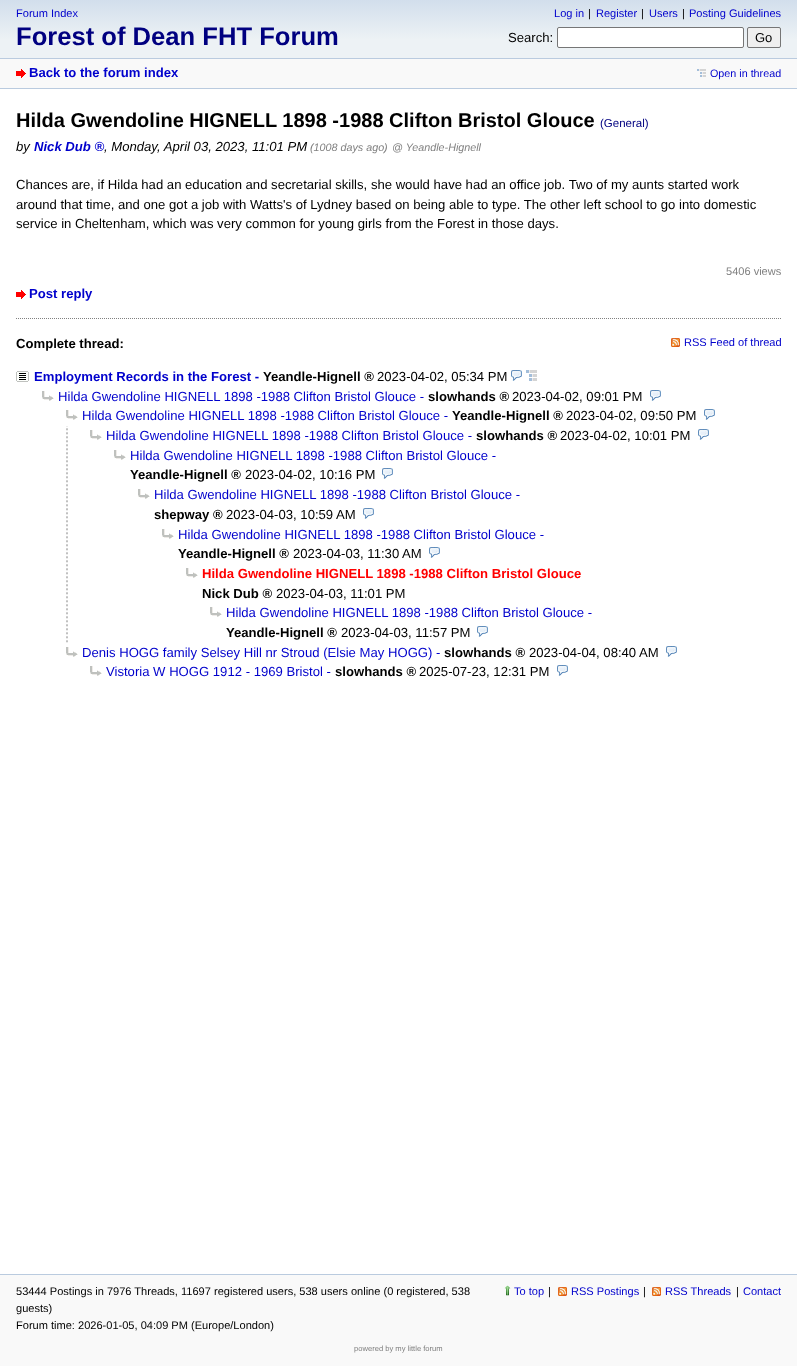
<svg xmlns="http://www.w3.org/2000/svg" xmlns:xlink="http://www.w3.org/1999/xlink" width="797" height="1366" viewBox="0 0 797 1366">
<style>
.cls-1{font:11.05px Liberation Sans;fill:#0000cc}
.cls-2{font:bold 25.6px Liberation Sans;fill:#000080}
.cls-3{font:11.05px Liberation Sans;fill:#000000}
.cls-4{font:13.12px Liberation Sans;fill:#000000}
.cls-5{font:13px Liberation Sans;fill:#000000}
.cls-6{font:bold 13.12px Liberation Sans;fill:#0000cc}
.cls-7{font:10.75px Liberation Sans;fill:#0000cc}
.cls-8{font:bold 20px Liberation Sans;fill:#000000}
.cls-9{font:11.5px Liberation Sans;fill:#000080}
.cls-10{font:italic 13.12px Liberation Sans;fill:#000000}
.cls-11{font:italic bold 13.12px Liberation Sans;fill:#0000cc}
.cls-12{font:italic 10.75px Liberation Sans;fill:#808080}
.cls-13{font:11.05px Liberation Sans;fill:#808080}
.cls-14{font:bold 13.12px Liberation Sans;fill:#000000}
.cls-15{font:13.12px Liberation Sans;fill:#0000cc}
.cls-16{font:bold 13.12px Liberation Sans;fill:#ff0000}
.cls-17{font:7.6px Liberation Sans;fill:#808080}
</style>
<defs>
<linearGradient id="g1" gradientUnits="userSpaceOnUse" x1="399" y1="0" x2="399" y2="58"><stop offset="0" stop-color="#d2deec"/><stop offset="0.69" stop-color="#edf2f5"/><stop offset="1" stop-color="#edf2f5"/></linearGradient>
</defs>
<rect width="100%" height="100%" fill="#f9f9f9"/>
<rect fill="url(#g1)" x="0" y="0" width="797" height="58"/>
<rect fill="#ffffff" stroke="#767676" x="557.5" y="27.5" width="186" height="20" rx="1.5"/>
<rect fill="#efefef" stroke="#767676" x="747.5" y="27.5" width="33" height="20" rx="1.5"/>
<rect fill="#bacbdf" x="0" y="58" width="797" height="1"/>
<rect fill="#bacbdf" x="0" y="88" width="797" height="1"/>
<image xlink:href="image0.png" x="16" y="69" width="10" height="9"/>
<image xlink:href="image1.png" x="697" y="69" width="9" height="8"/>
<rect fill="#ffffff" x="0" y="89" width="797" height="1185"/>
<image xlink:href="image2.png" x="16" y="290" width="10" height="9"/>
<path fill="none" stroke="#808080" stroke-dasharray="1 1" d="M16 318.5H781"/>
<image xlink:href="image3.png" x="671" y="338" width="9" height="9"/>
<image xlink:href="image4.png" x="16" y="371" width="13" height="11"/>
<image xlink:href="image5.png" x="511" y="370" width="11" height="11"/>
<image xlink:href="image6.png" x="526" y="370" width="11" height="11"/>
<image xlink:href="image7.png" x="42" y="391" width="12" height="10"/>
<image xlink:href="image5.png" x="650" y="390" width="11" height="11"/>
<image xlink:href="image7.png" x="66" y="410" width="12" height="10"/>
<image xlink:href="image5.png" x="704" y="409" width="11" height="11"/>
<image xlink:href="image8.png" x="66" y="426" width="2" height="217"/>
<image xlink:href="image7.png" x="90" y="430" width="12" height="10"/>
<image xlink:href="image5.png" x="698" y="429" width="11" height="11"/>
<image xlink:href="image7.png" x="114" y="450" width="12" height="10"/>
<image xlink:href="image5.png" x="382" y="468" width="11" height="11"/>
<image xlink:href="image7.png" x="138" y="489" width="12" height="10"/>
<image xlink:href="image5.png" x="363" y="508" width="11" height="11"/>
<image xlink:href="image7.png" x="162" y="529" width="12" height="10"/>
<image xlink:href="image5.png" x="429" y="547" width="11" height="11"/>
<image xlink:href="image7.png" x="186" y="568" width="12" height="10"/>
<image xlink:href="image7.png" x="210" y="607" width="12" height="10"/>
<image xlink:href="image5.png" x="477" y="626" width="11" height="11"/>
<image xlink:href="image7.png" x="66" y="647" width="12" height="10"/>
<image xlink:href="image5.png" x="666" y="646" width="11" height="11"/>
<image xlink:href="image7.png" x="90" y="666" width="12" height="10"/>
<image xlink:href="image5.png" x="557" y="665" width="11" height="11"/>
<rect fill="#bacbdf" x="0" y="1274" width="797" height="1"/>
<image xlink:href="image9.png" x="504" y="1285" width="7" height="11"/>
<image xlink:href="image3.png" x="558" y="1287" width="9" height="9"/>
<image xlink:href="image3.png" x="652" y="1287" width="9" height="9"/>
<text class="cls-1" x="16" y="17">Forum Index</text>
<text class="cls-2" x="16" y="45">Forest of Dean FHT Forum</text>
<text class="cls-1" x="554" y="17">Log in</text>
<text class="cls-3" x="588" y="17">|</text>
<text class="cls-1" x="596" y="17">Register</text>
<text class="cls-3" x="641" y="17">|</text>
<text class="cls-1" x="649" y="17">Users</text>
<text class="cls-3" x="682" y="17">|</text>
<text class="cls-1" x="689" y="17">Posting Guidelines</text>
<text class="cls-4" x="508" y="42">Search:</text>
<text class="cls-5" x="755" y="42">Go</text>
<text class="cls-6" x="29" y="77">Back to the forum index</text>
<text class="cls-7" x="710" y="77">Open in thread</text>
<text class="cls-8" x="16" y="127">Hilda Gwendoline HIGNELL 1898 -1988 Clifton Bristol Glouce</text>
<text class="cls-9" x="600" y="127">(General)</text>
<text class="cls-10" x="16" y="151">by</text>
<text class="cls-11" x="34" y="151">Nick Dub ®</text>
<text class="cls-10" x="104" y="151">, Monday, April 03, 2023, 11:01 PM</text>
<text class="cls-12" x="310" y="151">(1008 days ago)</text>
<text class="cls-12" x="392" y="151">@ Yeandle-Hignell</text>
<text class="cls-4"><tspan x="16" y="189">Chances are, if Hilda had an education and secretarial skills, she would have had an office job. Two of my aunts started work</tspan><tspan x="16" y="209">around that time, and one got a job with Watts's of Lydney based on being able to type. The other left school to go into domestic</tspan><tspan x="16" y="228">service in Cheltenham, which was very common for young girls from the Forest in those days.</tspan></text>
<text class="cls-13" x="726" y="275">5406 views</text>
<text class="cls-6" x="29" y="298">Post reply</text>
<text class="cls-14" x="16" y="348">Complete thread:</text>
<text class="cls-1" x="684" y="346">RSS Feed of thread</text>
<text class="cls-6" x="34" y="381">Employment Records in the Forest -</text>
<text class="cls-14" x="263" y="381">Yeandle-Hignell ®</text>
<text class="cls-4" x="377" y="381">2023-04-02, 05:34 PM</text>
<text class="cls-15" x="58" y="401">Hilda Gwendoline HIGNELL 1898 -1988 Clifton Bristol Glouce -</text>
<text class="cls-14" x="428" y="401">slowhands ®</text>
<text class="cls-4" x="512" y="401">2023-04-02, 09:01 PM</text>
<text class="cls-15" x="82" y="420">Hilda Gwendoline HIGNELL 1898 -1988 Clifton Bristol Glouce -</text>
<text class="cls-14" x="452" y="420">Yeandle-Hignell ®</text>
<text class="cls-4" x="566" y="420">2023-04-02, 09:50 PM</text>
<text class="cls-15" x="106" y="440">Hilda Gwendoline HIGNELL 1898 -1988 Clifton Bristol Glouce -</text>
<text class="cls-14" x="476" y="440">slowhands ®</text>
<text class="cls-4" x="560" y="440">2023-04-02, 10:01 PM</text>
<text class="cls-15" x="130" y="460">Hilda Gwendoline HIGNELL 1898 -1988 Clifton Bristol Glouce -</text>
<text class="cls-14" x="130" y="479">Yeandle-Hignell ®</text>
<text class="cls-4" x="245" y="479">2023-04-02, 10:16 PM</text>
<text class="cls-15" x="154" y="499">Hilda Gwendoline HIGNELL 1898 -1988 Clifton Bristol Glouce -</text>
<text class="cls-14" x="154" y="519">shepway ®</text>
<text class="cls-4" x="226" y="519">2023-04-03, 10:59 AM</text>
<text class="cls-15" x="178" y="539">Hilda Gwendoline HIGNELL 1898 -1988 Clifton Bristol Glouce -</text>
<text class="cls-14" x="178" y="558">Yeandle-Hignell ®</text>
<text class="cls-4" x="293" y="558">2023-04-03, 11:30 AM</text>
<text class="cls-16" x="202" y="578">Hilda Gwendoline HIGNELL 1898 -1988 Clifton Bristol Glouce</text>
<text class="cls-14" x="202" y="598">Nick Dub ®</text>
<text class="cls-4" x="276" y="598">2023-04-03, 11:01 PM</text>
<text class="cls-15" x="226" y="617">Hilda Gwendoline HIGNELL 1898 -1988 Clifton Bristol Glouce -</text>
<text class="cls-14" x="226" y="637">Yeandle-Hignell ®</text>
<text class="cls-4" x="341" y="637">2023-04-03, 11:57 PM</text>
<text class="cls-15" x="82" y="657">Denis HOGG family Selsey Hill nr Stroud (Elsie May HOGG) -</text>
<text class="cls-14" x="444" y="657">slowhands ®</text>
<text class="cls-4" x="529" y="657">2023-04-04, 08:40 AM</text>
<text class="cls-15" x="106" y="676">Vistoria W HOGG 1912 - 1969 Bristol -</text>
<text class="cls-14" x="335" y="676">slowhands ®</text>
<text class="cls-4" x="419" y="676">2025-07-23, 12:31 PM</text>
<text class="cls-3"><tspan x="16" y="1295">53444 Postings in 7976 Threads, 11697 registered users, 538 users online (0 registered, 538</tspan><tspan x="16" y="1312">guests)</tspan><tspan x="16" y="1329">Forum time: 2026-01-05, 04:09 PM (Europe/London)</tspan></text>
<text class="cls-1" x="514" y="1295">To top</text>
<text class="cls-3" x="548" y="1295">|</text>
<text class="cls-1" x="571" y="1295">RSS Postings</text>
<text class="cls-3" x="643" y="1295">|</text>
<text class="cls-1" x="665" y="1295">RSS Threads</text>
<text class="cls-3" x="736" y="1295">|</text>
<text class="cls-1" x="743" y="1295">Contact</text>
<text class="cls-17" x="354" y="1351">powered by my little forum</text>
</svg>
